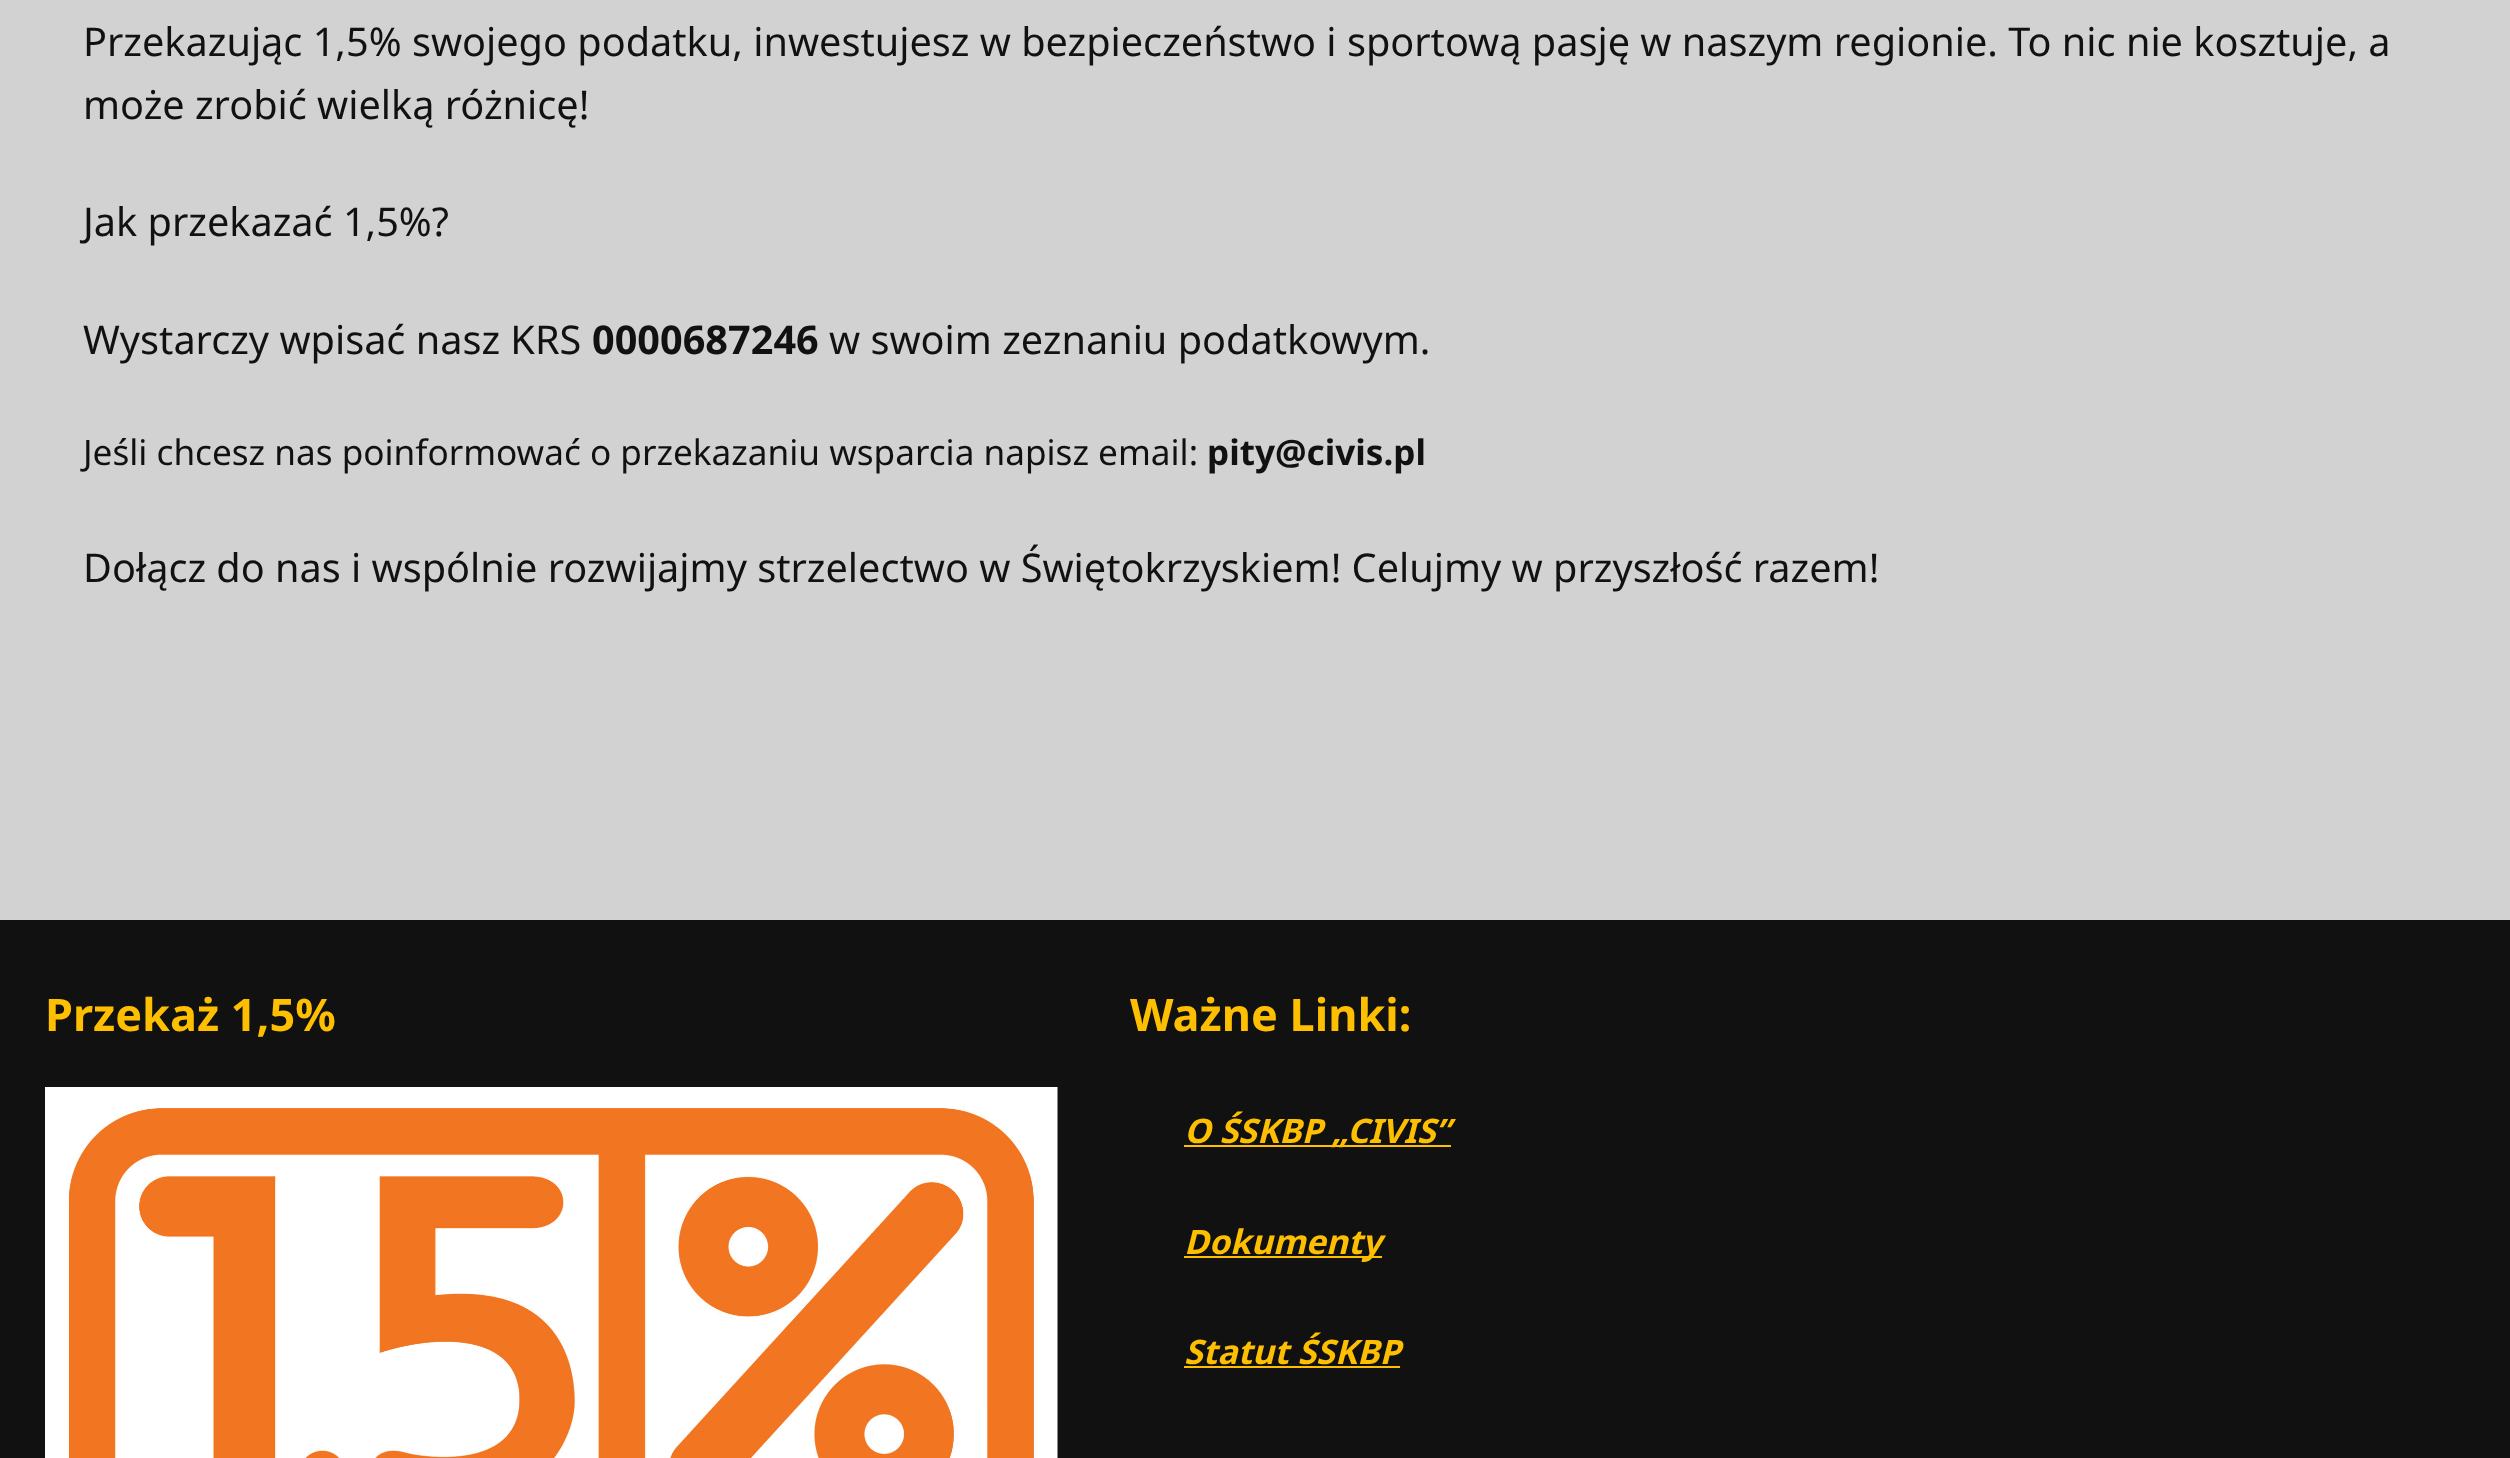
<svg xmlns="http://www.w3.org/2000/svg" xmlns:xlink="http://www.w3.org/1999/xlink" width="2510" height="1458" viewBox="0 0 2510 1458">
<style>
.cls-1{font:39.65px Noto Sans;fill:#111111}
.cls-2{font:bold 39.65px Noto Sans;fill:#111111}
.cls-3{font:35.15px Noto Sans;fill:#111111}
.cls-4{font:bold 35.15px Noto Sans;fill:#111111}
.cls-5{font:bold 45px Noto Sans;fill:#febf00}
.cls-6{font:italic bold 33.75px Noto Sans;fill:#febf00}
</style>
<rect width="100%" height="100%" fill="#d2d2d2"/>
<rect fill="#111111" x="0" y="920" width="2510" height="538"/>
<image xlink:href="image0.png" x="45" y="1087" width="1013" height="371"/>
<rect fill="#febf00" x="1184" y="1145" width="267" height="2"/>
<rect fill="#febf00" x="1184" y="1256" width="198" height="2"/>
<rect fill="#febf00" x="1184" y="1366" width="216" height="2"/>
<text class="cls-1"><tspan x="83" y="56">Przekazując 1,5% swojego podatku, inwestujesz w bezpieczeństwo i sportową pasję w naszym regionie. To nic nie kosztuje, a</tspan><tspan x="83" y="119">może zrobić wielką różnicę!</tspan></text>
<text class="cls-1" x="83" y="236">Jak przekazać 1,5%?</text>
<text class="cls-1" x="83" y="354">Wystarczy wpisać nasz KRS</text>
<text class="cls-2" x="592" y="354">0000687246</text>
<text class="cls-1" x="829" y="354">w swoim zeznaniu podatkowym.</text>
<text class="cls-3" x="83" y="465">Jeśli chcesz nas poinformować o przekazaniu wsparcia napisz email:</text>
<text class="cls-4" x="1207" y="465">pity@civis.pl</text>
<text class="cls-1" x="83" y="582">Dołącz do nas i wspólnie rozwijajmy strzelectwo w Świętokrzyskiem! Celujmy w przyszłość razem!</text>
<text class="cls-5" x="45" y="1031">Przekaż 1,5%</text>
<text class="cls-5" x="1130" y="1031">Ważne Linki:</text>
<text class="cls-6" x="1184" y="1143">O ŚSKBP „CIVIS”</text>
<text class="cls-6" x="1184" y="1254">Dokumenty</text>
<text class="cls-6" x="1184" y="1364">Statut ŚSKBP</text>
</svg>
